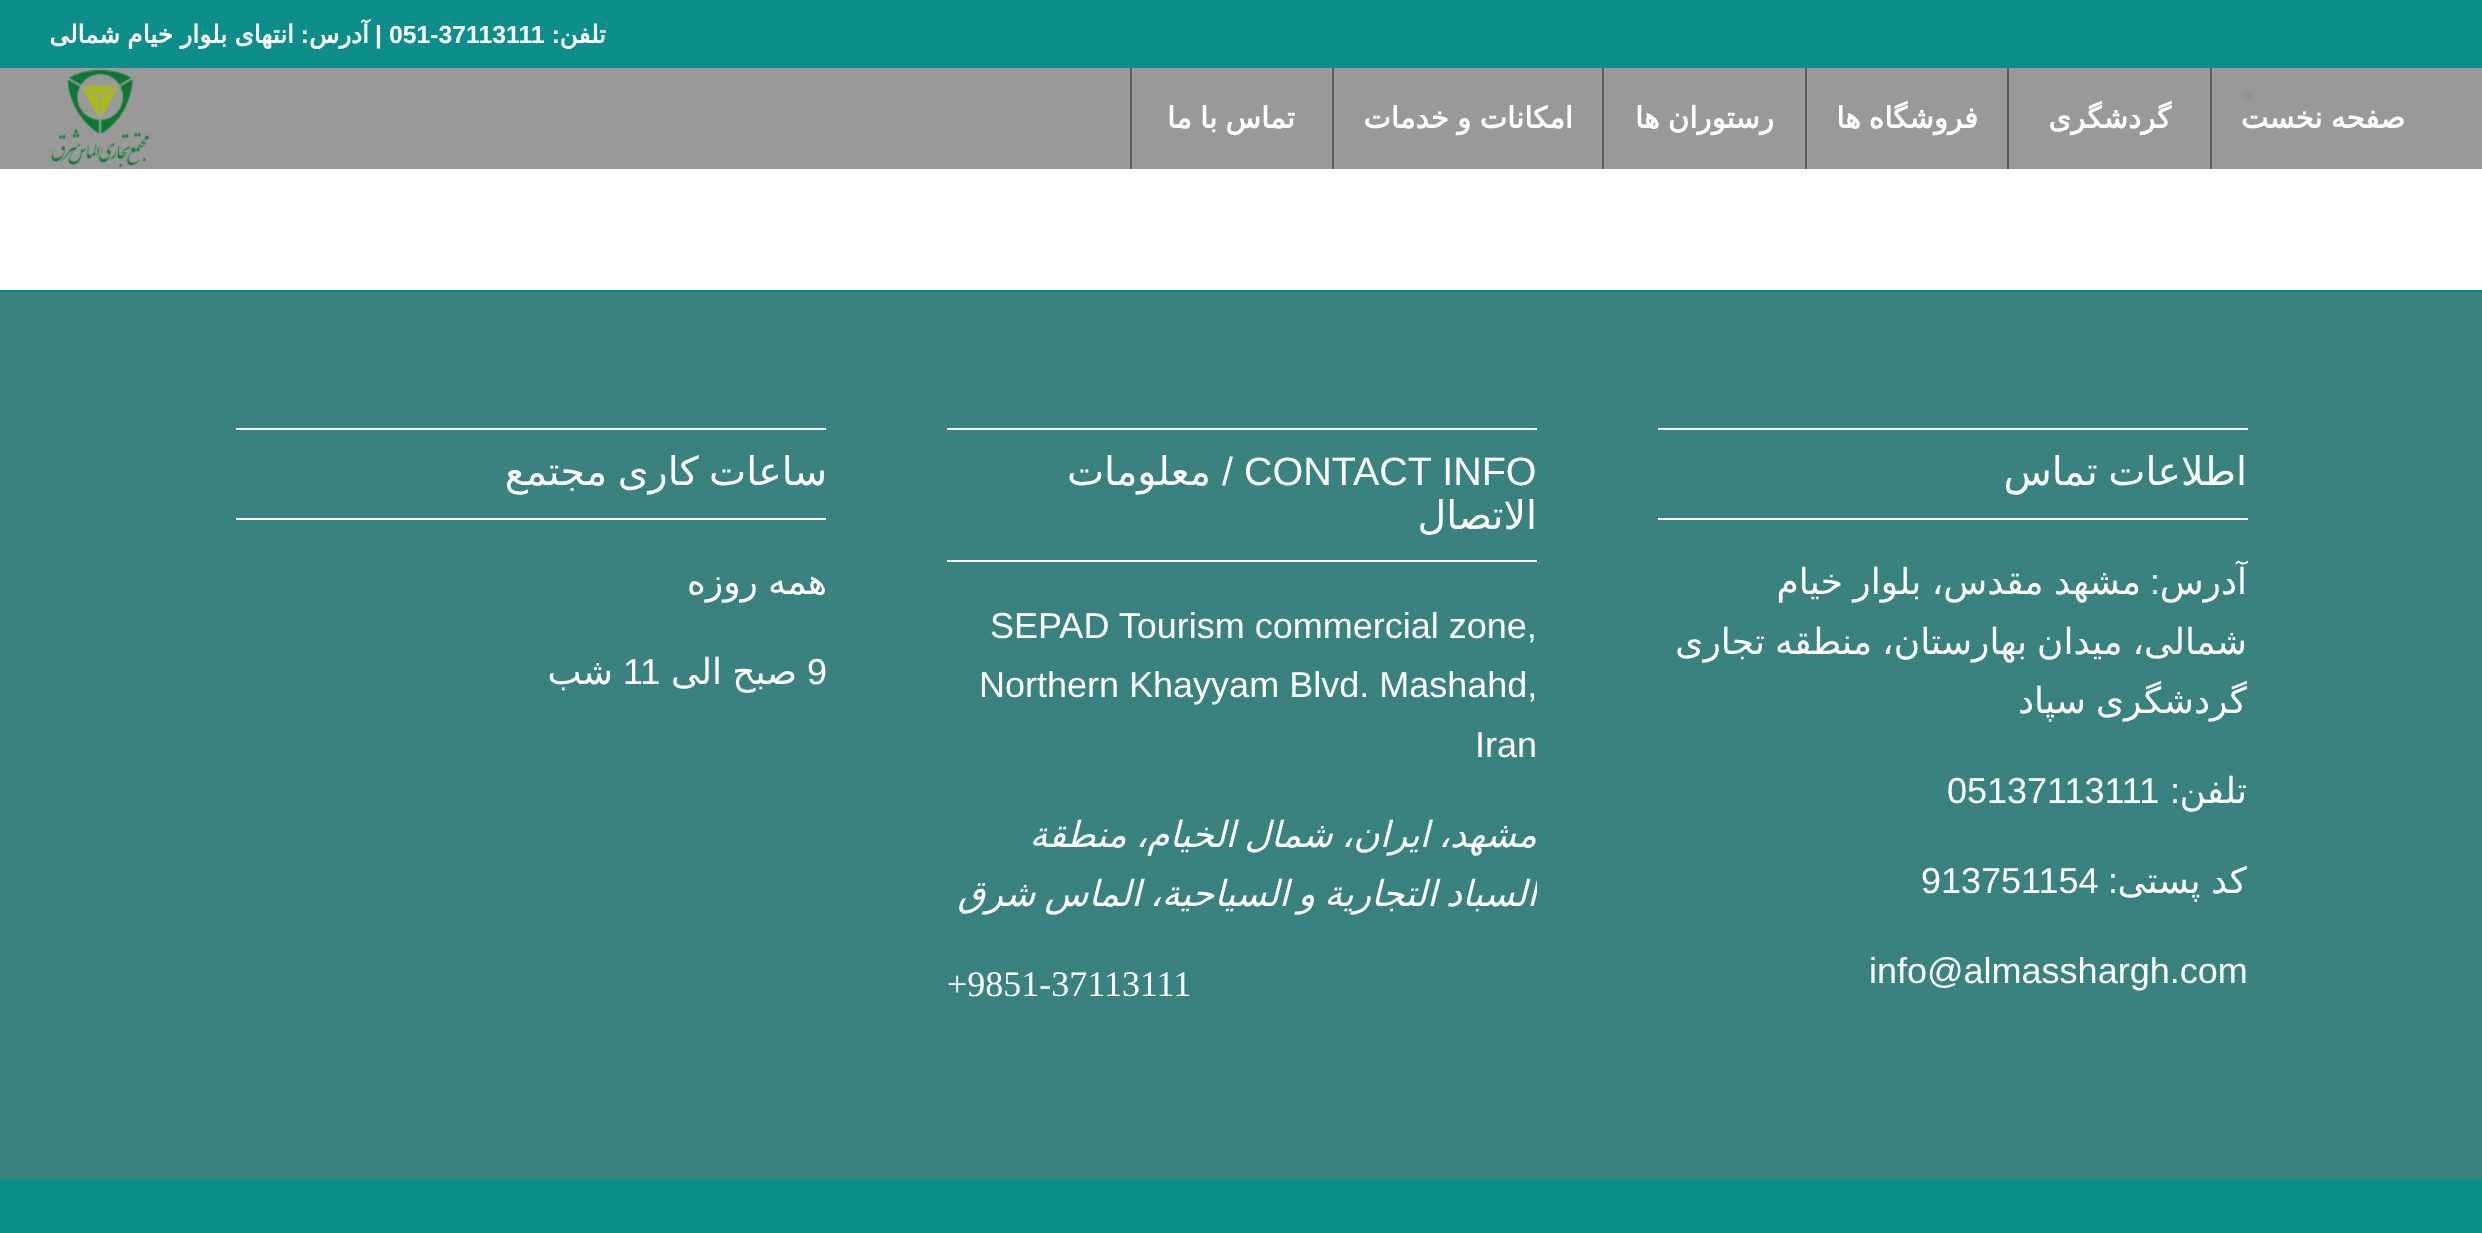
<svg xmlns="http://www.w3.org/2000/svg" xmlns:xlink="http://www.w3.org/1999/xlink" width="2482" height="1233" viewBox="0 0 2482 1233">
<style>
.cls-1{font:bold 24.75px DejaVu Sans;direction:rtl;fill:#ffffff}
.cls-2{font:bold 24.75px Liberation Sans;direction:rtl;fill:#ffffff}
.cls-3{font:bold 24.75px Liberation Sans;fill:#ffffff}
.cls-4{font:bold 29.25px DejaVu Sans;direction:rtl;fill:#ffffff}
.cls-5{font:39.5px DejaVu Sans;direction:rtl;fill:#ffffff}
.cls-6{font:36px DejaVu Sans;direction:rtl;fill:#ffffff}
.cls-7{font:36px Liberation Sans;direction:rtl;fill:#ffffff}
.cls-8{font:36px Liberation Sans;fill:#ffffff}
.cls-9{font:39.5px Liberation Sans;fill:#ffffff}
.cls-10{font:39.5px Liberation Sans;direction:rtl;fill:#ffffff}
.cls-11{font:italic 36px DejaVu Sans;direction:rtl;fill:#ffffff}
.cls-12{font:36px Liberation Serif;fill:#ffffff}
</style>
<defs>
<clipPath id="clip1"><rect x="1658" y="394" width="590" height="639"/></clipPath>
<clipPath id="clip2"><rect x="947" y="394" width="590" height="652"/></clipPath>
</defs>
<rect width="100%" height="100%" fill="#ffffff"/>
<rect fill="#0e8e8a" x="0" y="0" width="2482" height="68"/>
<rect fill="#999999" x="0" y="68" width="2482" height="101"/>
<rect fill="#5e5e5e" x="2210" y="68" width="2" height="101"/>
<rect fill="#5e5e5e" x="2007" y="68" width="2" height="101"/>
<rect fill="#5e5e5e" x="1805" y="68" width="2" height="101"/>
<rect fill="#5e5e5e" x="1602" y="68" width="2" height="101"/>
<rect fill="#5e5e5e" x="1332" y="68" width="2" height="101"/>
<rect fill="#5e5e5e" x="1130" y="68" width="2" height="101"/>
<image xlink:href="image0.png" x="50" y="69" width="100" height="99"/>
<circle fill="#949494" cx="2246.5" cy="95.5" r="5.5"/>
<rect fill="#398280" x="0" y="292" width="2482" height="887"/>
<rect fill="#0e8e8a" x="0" y="290" width="2482" height="2"/>
<rect fill="#ffffff" x="1658" y="428" width="590" height="2"/>
<rect fill="#ffffff" x="1658" y="518" width="590" height="2"/>
<rect fill="#ffffff" x="947" y="428" width="590" height="2"/>
<rect fill="#ffffff" x="947" y="560" width="590" height="2"/>
<rect fill="#ffffff" x="236" y="428" width="590" height="2"/>
<rect fill="#ffffff" x="236" y="518" width="590" height="2"/>
<rect fill="#0e8e8a" x="0" y="1179" width="2482" height="54"/>
<text class="cls-1" x="606" y="43">تلفن</text>
<text class="cls-2" x="560" y="43">:</text>
<text class="cls-3" x="389" y="43">051-37113111</text>
<text class="cls-2" x="382" y="43">|</text>
<text class="cls-1" x="369" y="43">آدرس</text>
<text class="cls-2" x="309" y="43">:</text>
<text class="cls-1" x="294" y="43" word-spacing="-0.5">انتهای بلوار خیام شمالی</text>
<text class="cls-4" x="2405" y="128" word-spacing="-1">صفحه نخست</text>
<text class="cls-4" x="2171" y="128">گردشگری</text>
<text class="cls-4" x="1978" y="128" word-spacing="-1">فروشگاه ها</text>
<text class="cls-4" x="1774" y="128" word-spacing="-1">رستوران ها</text>
<text class="cls-4" x="1573" y="128" word-spacing="-1">امکانات و خدمات</text>
<text class="cls-4" x="1295" y="128" word-spacing="-1">تماس با ما</text>
<text class="cls-5" x="2247" y="485" word-spacing="-2">اطلاعات تماس</text>
<g clip-path="url(#clip1)">
<text class="cls-6" x="2247" y="594">آدرس</text>
</g>
<text class="cls-7" x="2160" y="594">:</text>
<text class="cls-6" x="2141" y="594" word-spacing="-1">مشهد مقدس، بلوار خیام</text>
<text class="cls-6"><tspan x="2247" y="654" word-spacing="-1.5">شمالی، میدان بهارستان، منطقه تجاری</tspan><tspan x="2247" y="713" word-spacing="-1.5">گردشگری سپاد</tspan></text>
<text class="cls-6" x="2247" y="803">تلفن</text>
<text class="cls-7" x="2180" y="803">:</text>
<text class="cls-8" x="1947" y="803">05137113111</text>
<text class="cls-6" x="2247" y="893" word-spacing="-1">کد پستی</text>
<text class="cls-7" x="2118" y="893">:</text>
<text class="cls-8" x="1921" y="893">913751154</text>
<text class="cls-8" x="1869" y="983">info@almasshargh.com</text>
<text class="cls-9" x="1244" y="485">CONTACT INFO</text>
<text class="cls-10" x="1233" y="485">/</text>
<text class="cls-5" x="1211" y="485">معلومات</text>
<text class="cls-5" x="1537" y="529">الاتصال</text>
<text class="cls-8" x="990" y="638">SEPAD Tourism commercial zone,</text>
<text class="cls-8" x="979" y="697">Northern Khayyam Blvd. Mashahd,</text>
<text class="cls-8" x="1475" y="757">Iran</text>
<text class="cls-11" x="1537" y="847" word-spacing="-2.5">مشهد، ایران، شمال الخیام، منطقة</text>
<g clip-path="url(#clip2)">
<text class="cls-11" x="1537" y="906" word-spacing="-2.5">السباد التجاریة و السیاحیة، الماس شرق</text>
</g>
<text class="cls-12" x="947" y="996">+9851-37113111</text>
<text class="cls-5" x="827" y="485" word-spacing="-2">ساعات کاری مجتمع</text>
<text class="cls-6" x="827" y="594" word-spacing="-1.5">همه روزه</text>
<text class="cls-8" x="807" y="684">9</text>
<text class="cls-6" x="797" y="684" word-spacing="-1">صبح الی</text>
<text class="cls-8" x="623" y="684">11</text>
<text class="cls-6" x="613" y="684">شب</text>
</svg>
